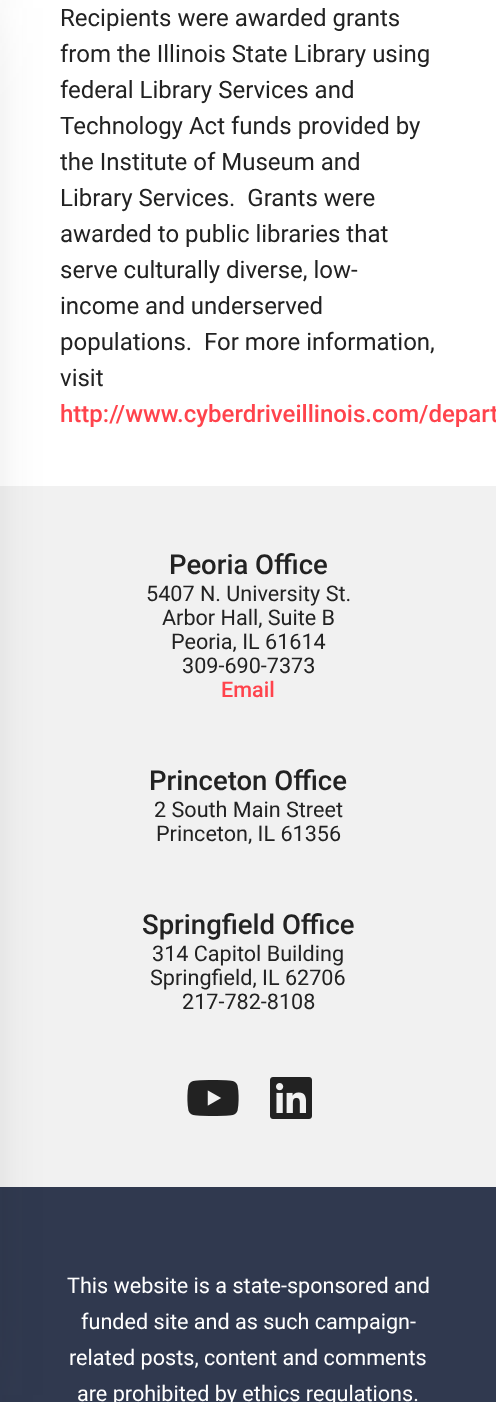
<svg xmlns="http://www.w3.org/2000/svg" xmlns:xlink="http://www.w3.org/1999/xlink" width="496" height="1402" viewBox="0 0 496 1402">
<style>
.cls-1{font:24px Roboto;fill:#222222}
.cls-2{font:500 24px Roboto;fill:#ff434c}
.cls-3{font:500 27.5px Roboto;fill:#222222}
.cls-4{font:21.6px Roboto;fill:#222222}
.cls-5{font:500 21.6px Roboto;fill:#ff434c}
.cls-6{font:21.6px Roboto;fill:#ffffff}
</style>
<rect width="100%" height="100%" fill="#f1f1f1"/>
<rect fill="#ffffff" x="0" y="0" width="496" height="486"/>
<rect fill="#30394f" x="0" y="1187" width="496" height="215"/>
<rect fill="#222222" filter="blur(52px)" x="-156" y="8" width="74" height="1387"/>
<image xlink:href="image0.png" x="187" y="1080" width="52" height="36"/>
<image xlink:href="image1.png" x="270" y="1077" width="42" height="42"/>
<text class="cls-1" xml:space="preserve"><tspan x="60" y="26">Recipients were awarded grants</tspan><tspan x="60" y="62">from the Illinois State Library using</tspan><tspan x="60" y="98">federal Library Services and</tspan><tspan x="60" y="134">Technology Act funds provided by</tspan><tspan x="60" y="170">the Institute of Museum and</tspan><tspan x="60" y="206">Library Services.  Grants were</tspan><tspan x="60" y="242">awarded to public libraries that</tspan><tspan x="60" y="278">serve culturally diverse, low-</tspan><tspan x="60" y="314">income and underserved</tspan><tspan x="60" y="350">populations.  For more information,</tspan><tspan x="60" y="386">visit</tspan></text>
<text class="cls-2" x="60" y="422">http://www.cyberdriveillinois.com/depart</text>
<text class="cls-3" x="169" y="574">Peoria Office</text>
<text class="cls-4" x="146" y="601">5407 N. University St.</text>
<text class="cls-4" x="162" y="625">Arbor Hall, Suite B</text>
<text class="cls-4" x="171" y="649">Peoria, IL 61614</text>
<text class="cls-4" x="182" y="673">309-690-7373</text>
<text class="cls-5" x="221" y="697">Email</text>
<text class="cls-3" x="149" y="790">Princeton Office</text>
<text class="cls-4" x="154" y="817">2 South Main Street</text>
<text class="cls-4" x="156" y="841">Princeton, IL 61356</text>
<text class="cls-3" x="142" y="934">Springfield Office</text>
<text class="cls-4" x="152" y="961">314 Capitol Building</text>
<text class="cls-4" x="150" y="985">Springfield, IL 62706</text>
<text class="cls-4" x="182" y="1009">217-782-8108</text>
<text class="cls-6" x="67" y="1293">This website is a state-sponsored and</text>
<text class="cls-6" x="81" y="1329">funded site and as such campaign-</text>
<text class="cls-6" x="69" y="1365">related posts, content and comments</text>
<text class="cls-6" x="77" y="1401">are prohibited by ethics regulations.</text>
</svg>
